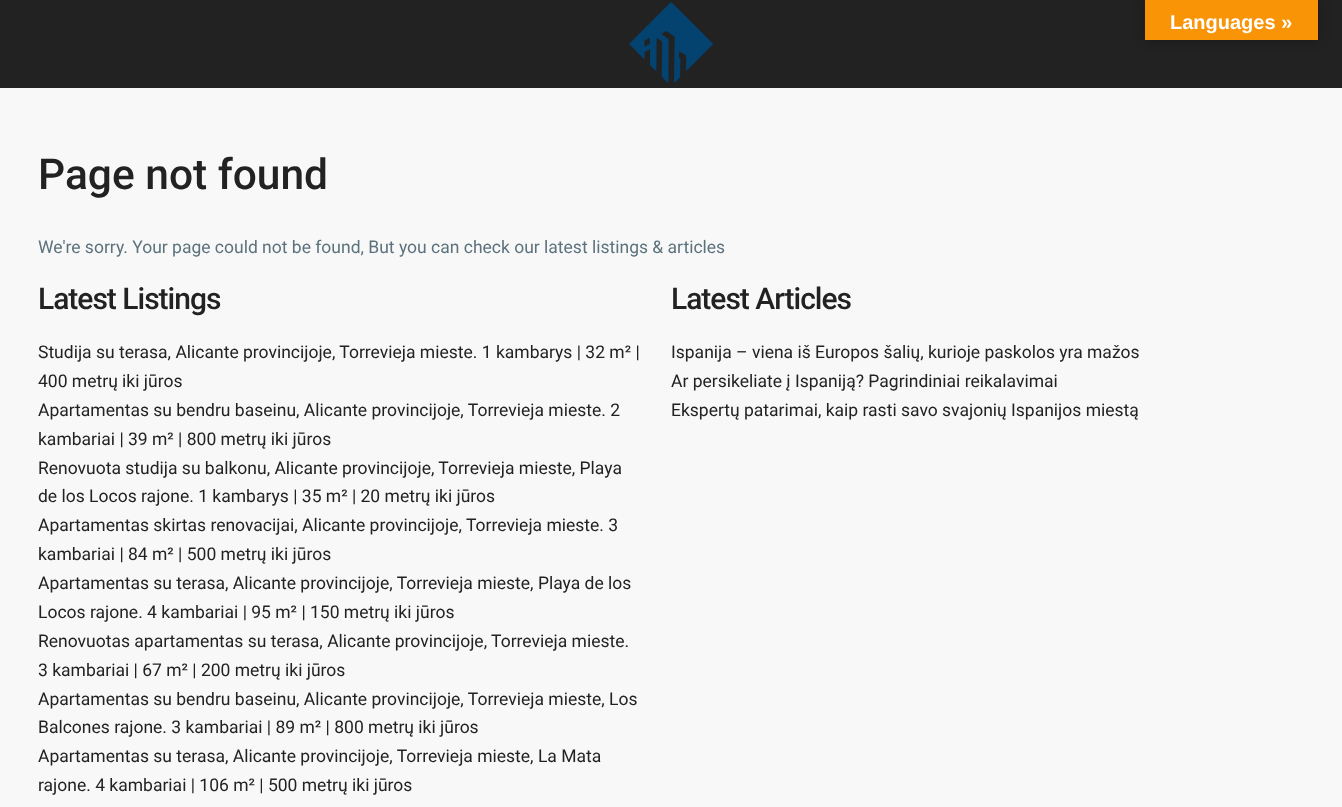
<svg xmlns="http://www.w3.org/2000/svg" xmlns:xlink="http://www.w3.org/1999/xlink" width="1342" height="807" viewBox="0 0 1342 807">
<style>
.cls-1{font:bold 20px Liberation Sans;fill:#ffffff}
.cls-2{font:500 42.5px Roboto;fill:#222222}
.cls-3{font:17.5px Roboto;fill:#5c727d}
.cls-4{font:500 30px Roboto;letter-spacing:-1px;fill:#222222}
.cls-5{font:17.5px Roboto;fill:#222222}
</style>
<rect width="100%" height="100%" fill="#f8f8f8"/>
<rect fill="#222222" x="0" y="0" width="1342" height="88"/>
<rect fill="#000000" fill-opacity="0.3" filter="blur(5.5px)" x="1145" y="0" width="173" height="40"/>
<rect fill="#f89406" x="1145" y="0" width="173" height="40"/>
<image xlink:href="image0.png" x="629" y="2" width="85" height="82"/>
<text class="cls-1" x="1170" y="29">Languages »</text>
<text class="cls-2" x="38" y="189">Page not found</text>
<text class="cls-3" x="38" y="253">We're sorry. Your page could not be found, But you can check our latest listings &amp; articles</text>
<text class="cls-4" x="38" y="309">Latest Listings</text>
<text class="cls-5"><tspan x="38" y="358">Studija su terasa, Alicante provincijoje, Torrevieja mieste. 1 kambarys | 32 m² |</tspan><tspan x="38" y="387">400 metrų iki jūros</tspan><tspan x="38" y="416">Apartamentas su bendru baseinu, Alicante provincijoje, Torrevieja mieste. 2</tspan><tspan x="38" y="445">kambariai | 39 m² | 800 metrų iki jūros</tspan><tspan x="38" y="474">Renovuota studija su balkonu, Alicante provincijoje, Torrevieja mieste, Playa</tspan><tspan x="38" y="502">de los Locos rajone. 1 kambarys | 35 m² | 20 metrų iki jūros</tspan><tspan x="38" y="531">Apartamentas skirtas renovacijai, Alicante provincijoje, Torrevieja mieste. 3</tspan><tspan x="38" y="560">kambariai | 84 m² | 500 metrų iki jūros</tspan><tspan x="38" y="589">Apartamentas su terasa, Alicante provincijoje, Torrevieja mieste, Playa de los</tspan><tspan x="38" y="618">Locos rajone. 4 kambariai | 95 m² | 150 metrų iki jūros</tspan><tspan x="38" y="647">Renovuotas apartamentas su terasa, Alicante provincijoje, Torrevieja mieste.</tspan><tspan x="38" y="676">3 kambariai | 67 m² | 200 metrų iki jūros</tspan><tspan x="38" y="705">Apartamentas su bendru baseinu, Alicante provincijoje, Torrevieja mieste, Los</tspan><tspan x="38" y="733">Balcones rajone. 3 kambariai | 89 m² | 800 metrų iki jūros</tspan><tspan x="38" y="762">Apartamentas su terasa, Alicante provincijoje, Torrevieja mieste, La Mata</tspan><tspan x="38" y="791">rajone. 4 kambariai | 106 m² | 500 metrų iki jūros</tspan></text>
<text class="cls-4" x="671" y="309">Latest Articles</text>
<text class="cls-5"><tspan x="671" y="358">Ispanija – viena iš Europos šalių, kurioje paskolos yra mažos</tspan><tspan x="671" y="387">Ar persikeliate į Ispaniją? Pagrindiniai reikalavimai</tspan><tspan x="671" y="416">Ekspertų patarimai, kaip rasti savo svajonių Ispanijos miestą</tspan></text>
</svg>
